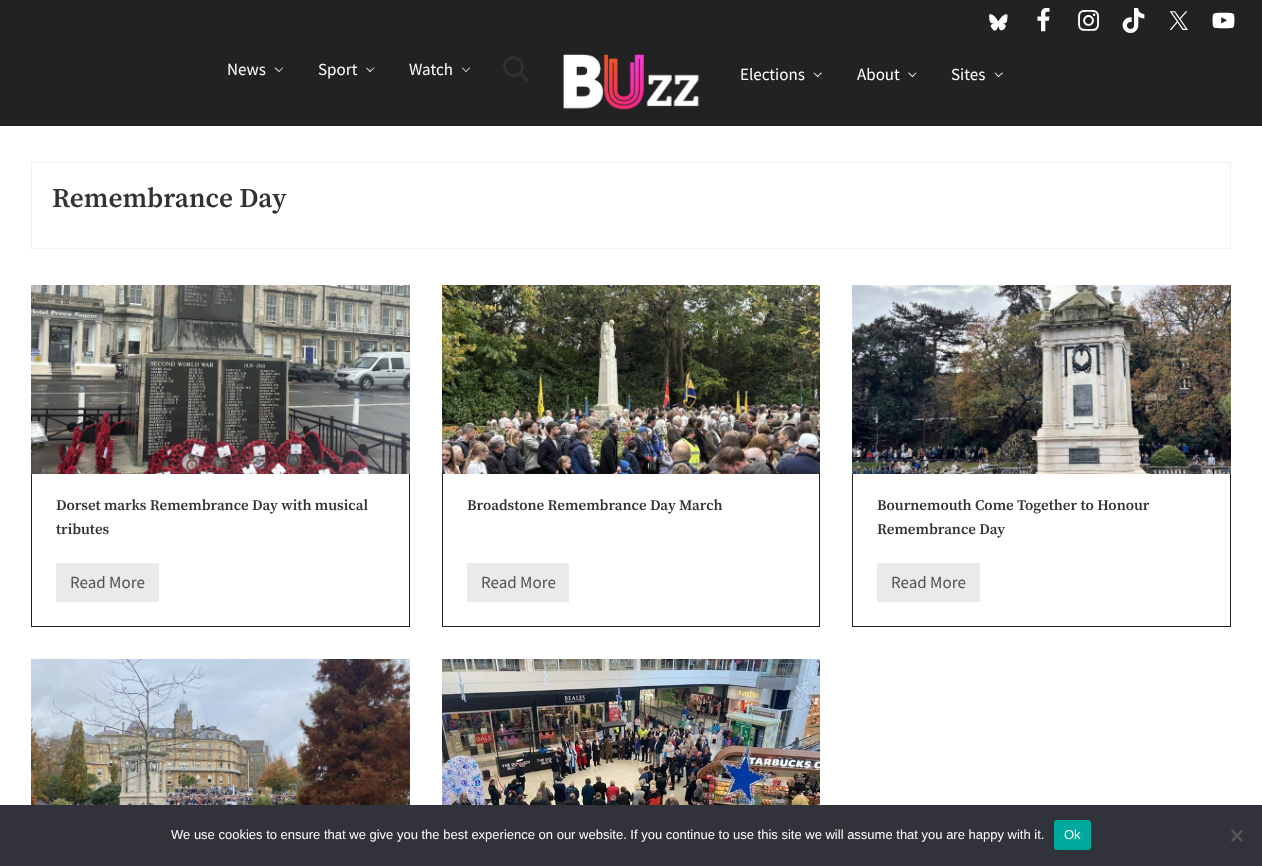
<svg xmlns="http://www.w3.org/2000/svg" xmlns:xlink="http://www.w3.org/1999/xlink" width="1262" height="866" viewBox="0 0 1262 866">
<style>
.cls-1{font:17px Source Sans Pro;fill:#ffffff}
.cls-2{font:600 27.25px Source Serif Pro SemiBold;fill:#323232}
.cls-3{font:600 14.9px Source Serif Pro SemiBold;fill:#323232}
.cls-4{font:17px Source Sans Pro;fill:#515151}
.cls-5{font:13px Liberation Sans;fill:#ffffff}
</style>
<rect width="100%" height="100%" fill="#ffffff"/>
<rect fill="#222222" x="0" y="0" width="1262" height="41"/>
<rect fill="#202020" x="0" y="41" width="1262" height="1"/>
<image xlink:href="image0.png" x="989" y="14" width="19" height="17"/>
<image xlink:href="image1.png" x="1037" y="8" width="13" height="24"/>
<image xlink:href="image2.png" x="1078" y="10" width="21" height="21"/>
<image xlink:href="image3.png" x="1122" y="8" width="23" height="25"/>
<image xlink:href="image4.png" x="1169" y="11" width="19" height="19"/>
<image xlink:href="image5.png" x="1212" y="12" width="23" height="17"/>
<rect fill="#222222" x="0" y="42" width="1262" height="83"/>
<rect fill="#202020" x="0" y="125" width="1262" height="1"/>
<path fill="#ffffff" d="M282.5 67.5L283 68L279 72L278.5 71.5Z"/>
<path fill="#ffffff" d="M275.5 67.5L279.5 71.5L279 72L274.5 68Z"/>
<path fill="#ffffff" d="M374 67.5L374.5 68L370 72L369.5 71.5Z"/>
<path fill="#ffffff" d="M366.5 67.5L371 71.5L370 72L366 68Z"/>
<path fill="#ffffff" d="M469.5 67.5L470 68L466 72L465.5 71.5Z"/>
<path fill="#ffffff" d="M462.5 67.5L466.5 71.5L466 72L462 68Z"/>
<path fill="none" stroke="#323232" stroke-width="3" d="M507 60C515.5 52 528 64.5 520 73C511.5 81 499 68.5 507 60Z"/>
<path fill="#323232" d="M520 75L522 73L529 80L527 82Z"/>
<image xlink:href="image6.png" x="563" y="54" width="137" height="56"/>
<path fill="#ffffff" d="M821 72.5L822 73L817.5 77L817 76.5Z"/>
<path fill="#ffffff" d="M814 72.5L818.5 76.5L817.5 77L813.5 73Z"/>
<path fill="#ffffff" d="M916 72.5L916.5 73L912.5 77L911.5 76.5Z"/>
<path fill="#ffffff" d="M909 72.5L913 76.5L912.5 77L908 73Z"/>
<path fill="#ffffff" d="M1002 72.5L1003 73L998.5 77L998 76.5Z"/>
<path fill="#ffffff" d="M995 72.5L999.5 76.5L998.5 77L994.5 73Z"/>
<rect fill="none" stroke="#f0f0f0" x="31.5" y="162.5" width="1199" height="86"/>
<rect fill="none" stroke="#222222" x="31.5" y="285.5" width="378" height="341"/>
<image xlink:href="image7.png" x="31" y="285" width="379" height="189"/>
<rect fill="#ebe9eb" x="56" y="563" width="103" height="39"/>
<rect fill="none" stroke="#222222" x="442.5" y="285.5" width="377" height="341"/>
<image xlink:href="image8.png" x="442" y="285" width="378" height="189"/>
<rect fill="#ebe9eb" x="467" y="563" width="102" height="39"/>
<rect fill="none" stroke="#222222" x="852.5" y="285.5" width="378" height="341"/>
<image xlink:href="image9.png" x="852" y="285" width="379" height="189"/>
<rect fill="#ebe9eb" x="877" y="563" width="103" height="39"/>
<image xlink:href="image10.png" x="31" y="659" width="379" height="146"/>
<image xlink:href="image11.png" x="442" y="659" width="378" height="146"/>
<rect fill="#32323a" x="0" y="805" width="1262" height="61"/>
<rect fill="#00a99d" x="1054" y="820" width="37" height="30" rx="3"/>
<path fill="#59595d" d="M1241.5 829.5L1243 831L1232.5 842L1231 840.5Z"/>
<path fill="#59595d" d="M1231 831L1232.5 829.5L1243 840.5L1241.5 842Z"/>
<text class="cls-1" x="227" y="75">News</text>
<text class="cls-1" x="318" y="75">Sport</text>
<text class="cls-1" x="409" y="75">Watch</text>
<text class="cls-1" x="740" y="80">Elections</text>
<text class="cls-1" x="857" y="80">About</text>
<text class="cls-1" x="951" y="80">Sites</text>
<text class="cls-2" x="52" y="207">Remembrance Day</text>
<text class="cls-3"><tspan x="56" y="510">Dorset marks Remembrance Day with musical</tspan><tspan x="56" y="534">tributes</tspan></text>
<text class="cls-4" x="70" y="588">Read More</text>
<text class="cls-3" x="467" y="510">Broadstone Remembrance Day March</text>
<text class="cls-4" x="481" y="588">Read More</text>
<text class="cls-3"><tspan x="877" y="510">Bournemouth Come Together to Honour</tspan><tspan x="877" y="534">Remembrance Day</tspan></text>
<text class="cls-4" x="891" y="588">Read More</text>
<text class="cls-5" x="171" y="839">We use cookies to ensure that we give you the best experience on our website. If you continue to use this site we will assume that you are happy with it.</text>
<text class="cls-5" x="1064" y="839">Ok</text>
</svg>
